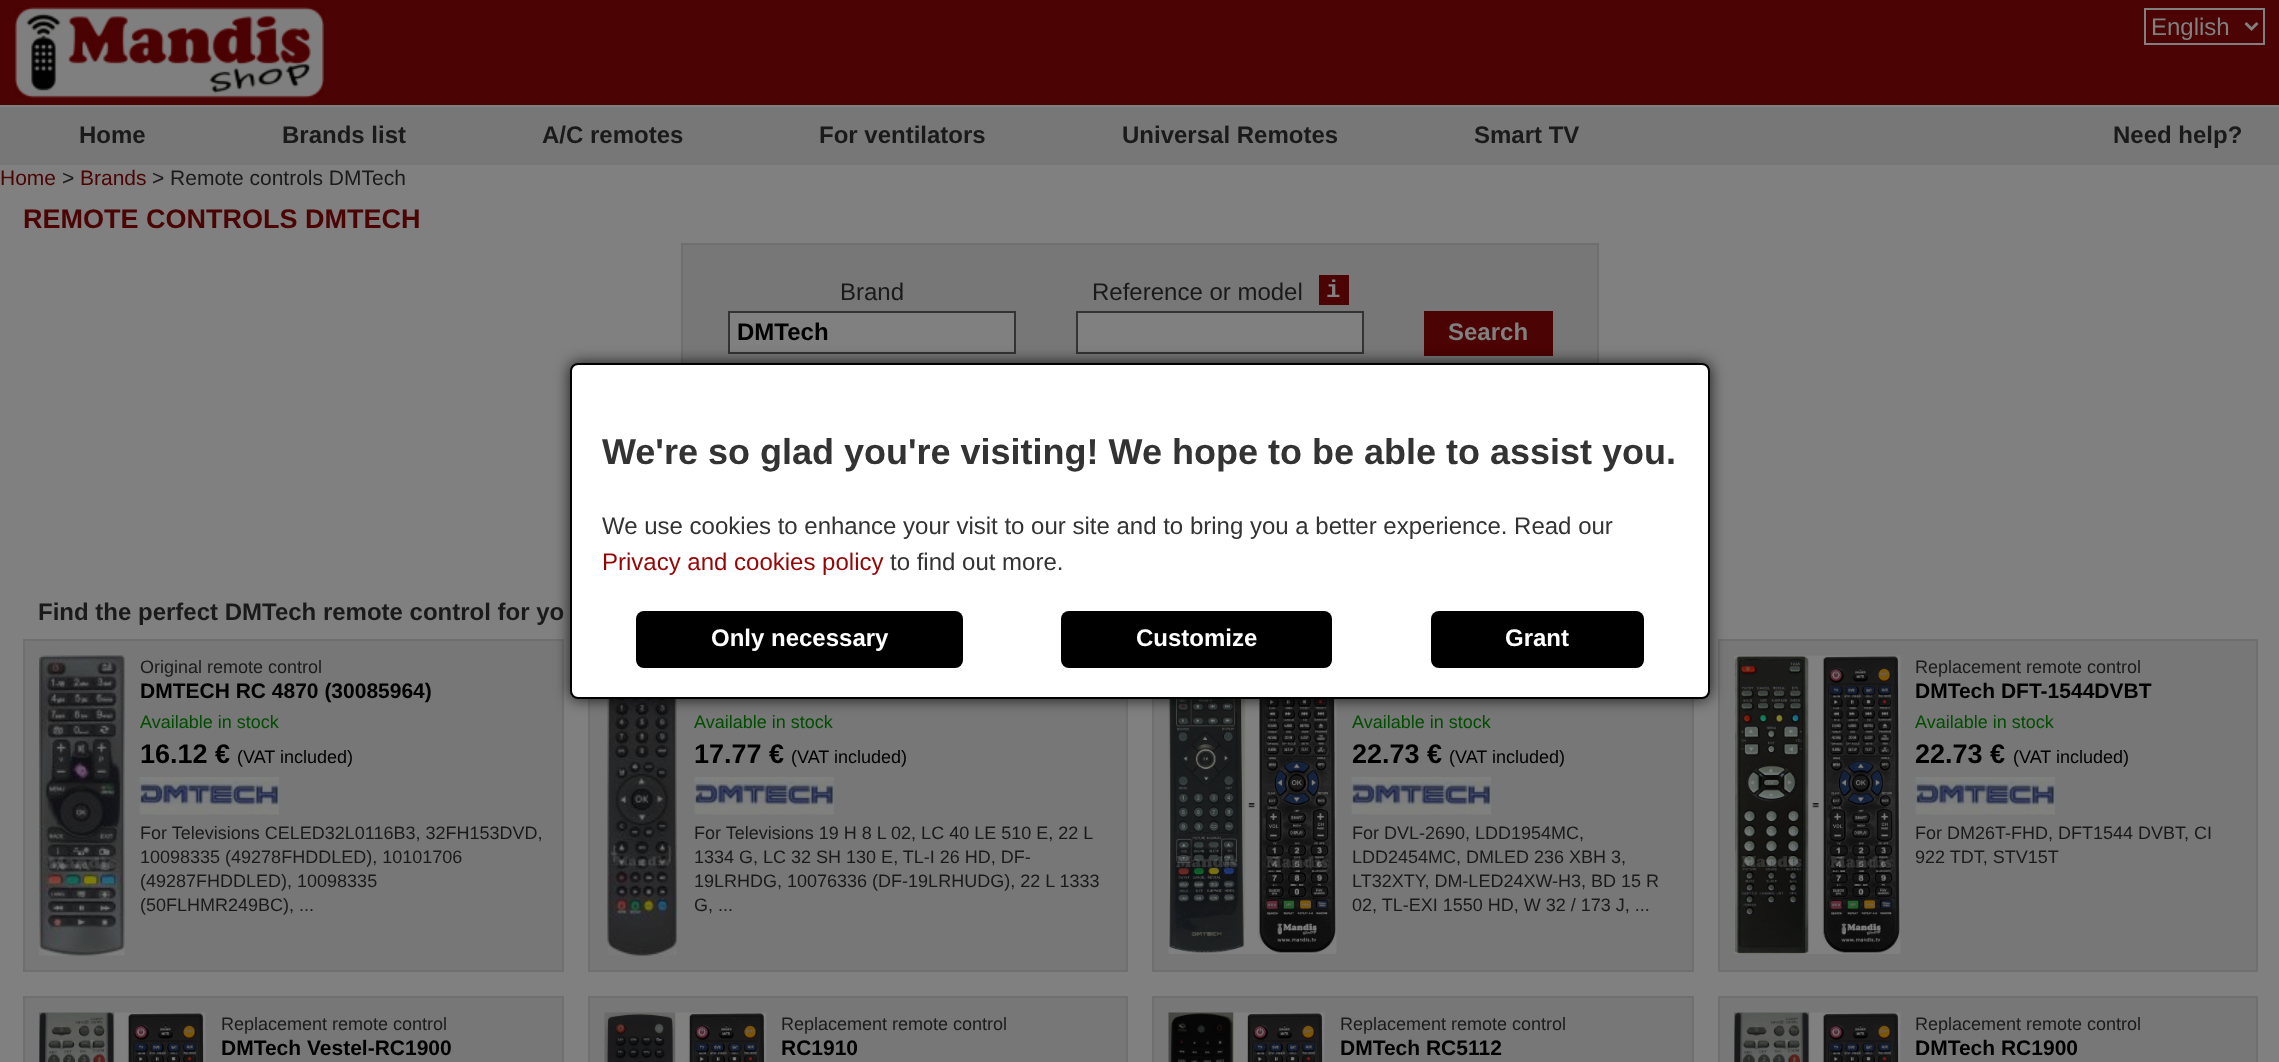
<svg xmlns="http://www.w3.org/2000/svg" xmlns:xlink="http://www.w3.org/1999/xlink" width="2279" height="1062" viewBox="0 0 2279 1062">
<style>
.cls-1{font:24px Liberation Sans;fill:#808080}
.cls-2{font:bold 24px Liberation Sans;fill:#1a1a1a}
.cls-3{font:21px Liberation Sans;fill:#4b0303}
.cls-4{font:21px Liberation Sans;fill:#1a1a1a}
.cls-5{font:bold 27px Liberation Sans;fill:#4b0303}
.cls-6{font:24px Liberation Sans;fill:#1a1a1a}
.cls-7{font:bold 24px Liberation Sans;fill:#000000}
.cls-8{font:bold 24px Liberation Mono;fill:#808080}
.cls-9{font:bold 24px Liberation Sans;fill:#808080}
.cls-10{font:18px Liberation Sans;fill:#1a1a1a}
.cls-11{font:bold 21px Liberation Sans;fill:#000000}
.cls-12{font:18px Liberation Sans;fill:#004d00}
.cls-13{font:bold 27px Liberation Sans;fill:#000000}
.cls-14{font:18px Liberation Sans;fill:#000000}
.cls-15{font:bold 36px Liberation Sans;fill:#333333}
.cls-16{font:24px Liberation Sans;fill:#333333}
.cls-17{font:24px Liberation Sans;fill:#950505}
.cls-18{font:bold 24px Liberation Sans;fill:#ffffff}
</style>
<rect width="100%" height="100%" fill="#808080"/>
<rect fill="#4b0303" x="0" y="0" width="2279" height="105"/>
<image xlink:href="image0.png" x="15" y="7" width="309" height="91"/>
<rect fill="none" stroke="#808080" stroke-width="2" x="2145" y="9" width="119" height="35"/>
<path fill="none" stroke="#808080" stroke-width="3" d="M2245.5 23L2251.5 29L2257.5 23"/>
<rect fill="#777777" x="0" y="107" width="2279" height="58"/>
<rect fill="#777777" x="683" y="245" width="914" height="118"/>
<rect fill="none" stroke="#6f6f6f" stroke-width="2" x="682" y="244" width="916" height="336"/>
<rect fill="#808080" stroke="#333333" stroke-width="2" x="729" y="312" width="286" height="41"/>
<rect fill="#4b0303" x="1319" y="275" width="30" height="30"/>
<rect fill="#808080" stroke="#333333" stroke-width="2" x="1077" y="312" width="286" height="41"/>
<rect fill="#4b0303" x="1424" y="311" width="129" height="45"/>
<rect fill="#777777" stroke="#6f6f6f" stroke-width="2" x="24" y="640" width="539" height="331"/>
<image xlink:href="image1.png" x="39" y="655" width="86" height="301"/>
<image xlink:href="image2.png" x="139" y="777" width="140" height="38"/>
<rect fill="#777777" x="590" y="699" width="536" height="271"/>
<rect fill="none" stroke="#6f6f6f" stroke-width="2" x="589" y="640" width="538" height="331"/>
<image xlink:href="image3.png" x="607" y="699" width="70" height="257"/>
<image xlink:href="image4.png" x="694" y="777" width="140" height="38"/>
<rect fill="#777777" x="1154" y="699" width="538" height="271"/>
<rect fill="none" stroke="#6f6f6f" stroke-width="2" x="1153" y="640" width="540" height="331"/>
<image xlink:href="image5.png" x="1168" y="699" width="169" height="255"/>
<image xlink:href="image6.png" x="1351" y="777" width="140" height="38"/>
<rect fill="#777777" stroke="#6f6f6f" stroke-width="2" x="1719" y="640" width="538" height="331"/>
<image xlink:href="image7.png" x="1734" y="655" width="167" height="299"/>
<image xlink:href="image8.png" x="1915" y="777" width="140" height="38"/>
<rect fill="#777777" stroke="#6f6f6f" stroke-width="2" x="24" y="997" width="539" height="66"/>
<image xlink:href="image9.png" x="39" y="1012" width="167" height="50"/>
<rect fill="#777777" stroke="#6f6f6f" stroke-width="2" x="589" y="997" width="538" height="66"/>
<image xlink:href="image10.png" x="604" y="1012" width="163" height="50"/>
<rect fill="#777777" stroke="#6f6f6f" stroke-width="2" x="1153" y="997" width="540" height="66"/>
<image xlink:href="image11.png" x="1168" y="1012" width="157" height="50"/>
<rect fill="#777777" stroke="#6f6f6f" stroke-width="2" x="1719" y="997" width="538" height="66"/>
<image xlink:href="image9.png" x="1734" y="1012" width="167" height="50"/>
<rect fill="#000000" fill-opacity="0.8" filter="blur(7.5px)" x="570" y="363" width="1140" height="336" rx="8"/>
<rect fill="#ffffff" stroke="#000000" stroke-width="2" x="571" y="364" width="1138" height="334" rx="7"/>
<rect fill="#000000" x="636" y="611" width="327" height="57" rx="8"/>
<rect fill="#000000" x="1061" y="611" width="271" height="57" rx="8"/>
<rect fill="#000000" x="1431" y="611" width="213" height="57" rx="8"/>
<text class="cls-1" x="2151" y="35">English</text>
<text class="cls-2" x="79" y="143">Home</text>
<text class="cls-2" x="282" y="143">Brands list</text>
<text class="cls-2" x="542" y="143">A/C remotes</text>
<text class="cls-2" x="819" y="143">For ventilators</text>
<text class="cls-2" x="1122" y="143">Universal Remotes</text>
<text class="cls-2" x="1474" y="143">Smart TV</text>
<text class="cls-2" x="2113" y="143">Need help?</text>
<text class="cls-3" x="0" y="185">Home</text>
<text class="cls-4" x="62" y="185">&gt;</text>
<text class="cls-3" x="80" y="185">Brands</text>
<text class="cls-4" x="152" y="185">&gt; Remote controls DMTech</text>
<text class="cls-5" x="23" y="228">REMOTE CONTROLS DMTECH</text>
<text class="cls-6" x="840" y="300">Brand</text>
<text class="cls-7" x="737" y="340">DMTech</text>
<text class="cls-6" x="1092" y="300">Reference or model</text>
<text class="cls-8" x="1326" y="297">i</text>
<text class="cls-9" x="1448" y="340">Search</text>
<text class="cls-2" x="38" y="620">Find the perfect DMTech remote control for yo</text>
<text class="cls-10" x="140" y="673">Original remote control</text>
<text class="cls-11" x="140" y="698">DMTECH RC 4870 (30085964)</text>
<text class="cls-12" x="140" y="728">Available in stock</text>
<text class="cls-13" x="140" y="763">16.12 €</text>
<text class="cls-14" x="237" y="763">(VAT included)</text>
<text class="cls-10"><tspan x="140" y="839">For Televisions CELED32L0116B3, 32FH153DVD,</tspan><tspan x="140" y="863">10098335 (49278FHDDLED), 10101706</tspan><tspan x="140" y="887">(49287FHDDLED), 10098335</tspan><tspan x="140" y="911">(50FLHMR249BC), ...</tspan></text>
<text class="cls-12" x="694" y="728">Available in stock</text>
<text class="cls-13" x="694" y="763">17.77 €</text>
<text class="cls-14" x="791" y="763">(VAT included)</text>
<text class="cls-10"><tspan x="694" y="839">For Televisions 19 H 8 L 02, LC 40 LE 510 E, 22 L</tspan><tspan x="694" y="863">1334 G, LC 32 SH 130 E, TL-I 26 HD, DF-</tspan><tspan x="694" y="887">19LRHDG, 10076336 (DF-19LRHUDG), 22 L 1333</tspan><tspan x="694" y="911">G, ...</tspan></text>
<text class="cls-12" x="1352" y="728">Available in stock</text>
<text class="cls-13" x="1352" y="763">22.73 €</text>
<text class="cls-14" x="1449" y="763">(VAT included)</text>
<text class="cls-10"><tspan x="1352" y="839">For DVL-2690, LDD1954MC,</tspan><tspan x="1352" y="863">LDD2454MC, DMLED 236 XBH 3,</tspan><tspan x="1352" y="887">LT32XTY, DM-LED24XW-H3, BD 15 R</tspan><tspan x="1352" y="911">02, TL-EXI 1550 HD, W 32 / 173 J, ...</tspan></text>
<text class="cls-10" x="1915" y="673">Replacement remote control</text>
<text class="cls-11" x="1915" y="698">DMTech DFT-1544DVBT</text>
<text class="cls-12" x="1915" y="728">Available in stock</text>
<text class="cls-13" x="1915" y="763">22.73 €</text>
<text class="cls-14" x="2013" y="763">(VAT included)</text>
<text class="cls-10"><tspan x="1915" y="839">For DM26T-FHD, DFT1544 DVBT, CI</tspan><tspan x="1915" y="863">922 TDT, STV15T</tspan></text>
<text class="cls-10" x="221" y="1030">Replacement remote control</text>
<text class="cls-11" x="221" y="1055">DMTech Vestel-RC1900</text>
<text class="cls-10" x="781" y="1030">Replacement remote control</text>
<text class="cls-11" x="781" y="1055">RC1910</text>
<text class="cls-10" x="1340" y="1030">Replacement remote control</text>
<text class="cls-11" x="1340" y="1055">DMTech RC5112</text>
<text class="cls-10" x="1915" y="1030">Replacement remote control</text>
<text class="cls-11" x="1915" y="1055">DMTech RC1900</text>
<text class="cls-15" x="602" y="464">We're so glad you're visiting! We hope to be able to assist you.</text>
<text class="cls-16" x="602" y="534">We use cookies to enhance your visit to our site and to bring you a better experience. Read our</text>
<text class="cls-17" x="602" y="570">Privacy and cookies policy</text>
<text class="cls-16" x="890" y="570">to find out more.</text>
<text class="cls-18" x="711" y="646">Only necessary</text>
<text class="cls-18" x="1136" y="646">Customize</text>
<text class="cls-18" x="1505" y="646">Grant</text>
</svg>
